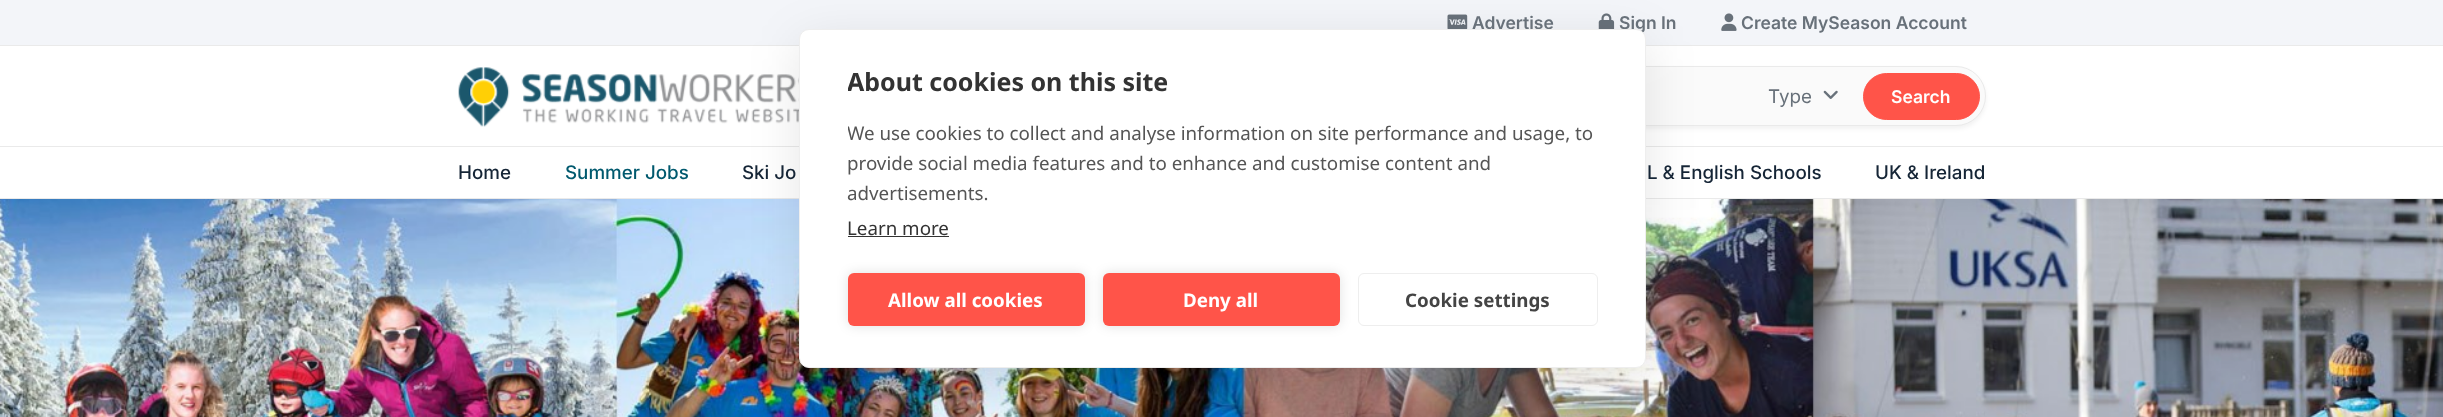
<svg xmlns="http://www.w3.org/2000/svg" xmlns:xlink="http://www.w3.org/1999/xlink" width="2443" height="417" viewBox="0 0 2443 417">
<style>
.cls-1{font:600 17.5px Inter;fill:#68717a}
.cls-2{font:18.75px Inter;fill:#68717a}
.cls-3{font:600 17.5px Inter;fill:#ffffff}
.cls-4{font:500 18.75px Inter;fill:#152536}
.cls-5{font:500 18.75px Inter;fill:#00596e}
.cls-6{font:bold 25px Noto Sans;fill:#333333}
.cls-7{font:18.75px Noto Sans;fill:#555555}
.cls-8{font:18.75px Noto Sans;fill:#333333}
.cls-9{font:bold 18.75px Noto Sans;fill:#ffffff}
.cls-10{font:bold 18.75px Noto Sans;fill:#444444}
</style>
<defs>
<clipPath id="clip1"><rect x="848" y="70" width="750" height="203"/></clipPath>
</defs>
<rect width="100%" height="100%" fill="#ffffff"/>
<rect fill="#f3f5f9" x="0" y="0" width="2443" height="45"/>
<rect fill="#eaeaea" x="0" y="45" width="2443" height="1"/>
<image xlink:href="image0.png" x="1447" y="14" width="21" height="15"/>
<image xlink:href="image1.png" x="1598" y="13" width="17" height="16"/>
<image xlink:href="image2.png" x="1721" y="13" width="16" height="18"/>
<rect fill="#eaeaea" x="0" y="146" width="2443" height="1"/>
<image xlink:href="image3.png" x="458" y="67" width="341" height="60"/>
<rect fill="#000000" fill-opacity="0.05" filter="blur(2px)" x="1111" y="69" width="875" height="60" rx="30"/>
<rect fill="#fafafa" stroke="#eaeaea" x="1111.5" y="66.5" width="874" height="59" rx="29.5"/>
<image xlink:href="image4.png" x="1823" y="90" width="15" height="9"/>
<rect fill="#ff5449" stroke="#ff5449" x="1863.5" y="73.5" width="116" height="46" rx="23"/>
<rect fill="#eaeaea" x="0" y="198" width="2443" height="1"/>
<image xlink:href="image5.png" x="0" y="199" width="2443" height="218"/>
<rect fill="#000000" fill-opacity="0.1" filter="blur(25px)" x="799" y="41" width="847" height="339" rx="10"/>
<text class="cls-1" x="1472" y="29">Advertise</text>
<text class="cls-1" x="1619" y="29">Sign In</text>
<text class="cls-1" x="1741" y="29">Create MySeason Account</text>
<text class="cls-2" x="1768" y="103">Type</text>
<text class="cls-3" x="1891" y="103">Search</text>
<text class="cls-4" x="458" y="179">Home</text>
<text class="cls-5" x="565" y="179">Summer Jobs</text>
<text class="cls-4" x="742" y="179">Ski Jo</text>
<text class="cls-4" x="1647" y="179">L &amp; English Schools</text>
<text class="cls-4" x="1875" y="179">UK &amp; Ireland</text>
<rect fill="#ffffff" stroke="#eeeeee" x="799.5" y="29.5" width="846" height="338" rx="9.5"/>
<g clip-path="url(#clip1)">
<text class="cls-6" x="847" y="91">About cookies on this site</text>
<text class="cls-7" x="847" y="140">We use cookies to collect and analyse information on site performance and usage, to</text>
</g>
<text class="cls-7"><tspan x="847" y="170">provide social media features and to enhance and customise content and</tspan><tspan x="847" y="200">advertisements.</tspan></text>
<text class="cls-8" x="847" y="235">Learn more</text>
<rect fill="#333333" x="848" y="236" width="101" height="1"/>
<rect fill="#000000" fill-opacity="0.12" filter="blur(6px)" x="848" y="273" width="237" height="53" rx="6"/>
<rect fill="#ff5449" x="848" y="273" width="237" height="53" rx="6"/>
<text class="cls-9" x="888" y="307">Allow all cookies</text>
<rect fill="#000000" fill-opacity="0.12" filter="blur(6px)" x="1103" y="273" width="237" height="53" rx="6"/>
<rect fill="#ff5449" x="1103" y="273" width="237" height="53" rx="6"/>
<text class="cls-9" x="1183" y="307">Deny all</text>
<rect fill="none" stroke="#eeeeee" x="1358.5" y="273.5" width="239" height="52" rx="5.5"/>
<text class="cls-10" x="1405" y="307">Cookie settings</text>
</svg>
